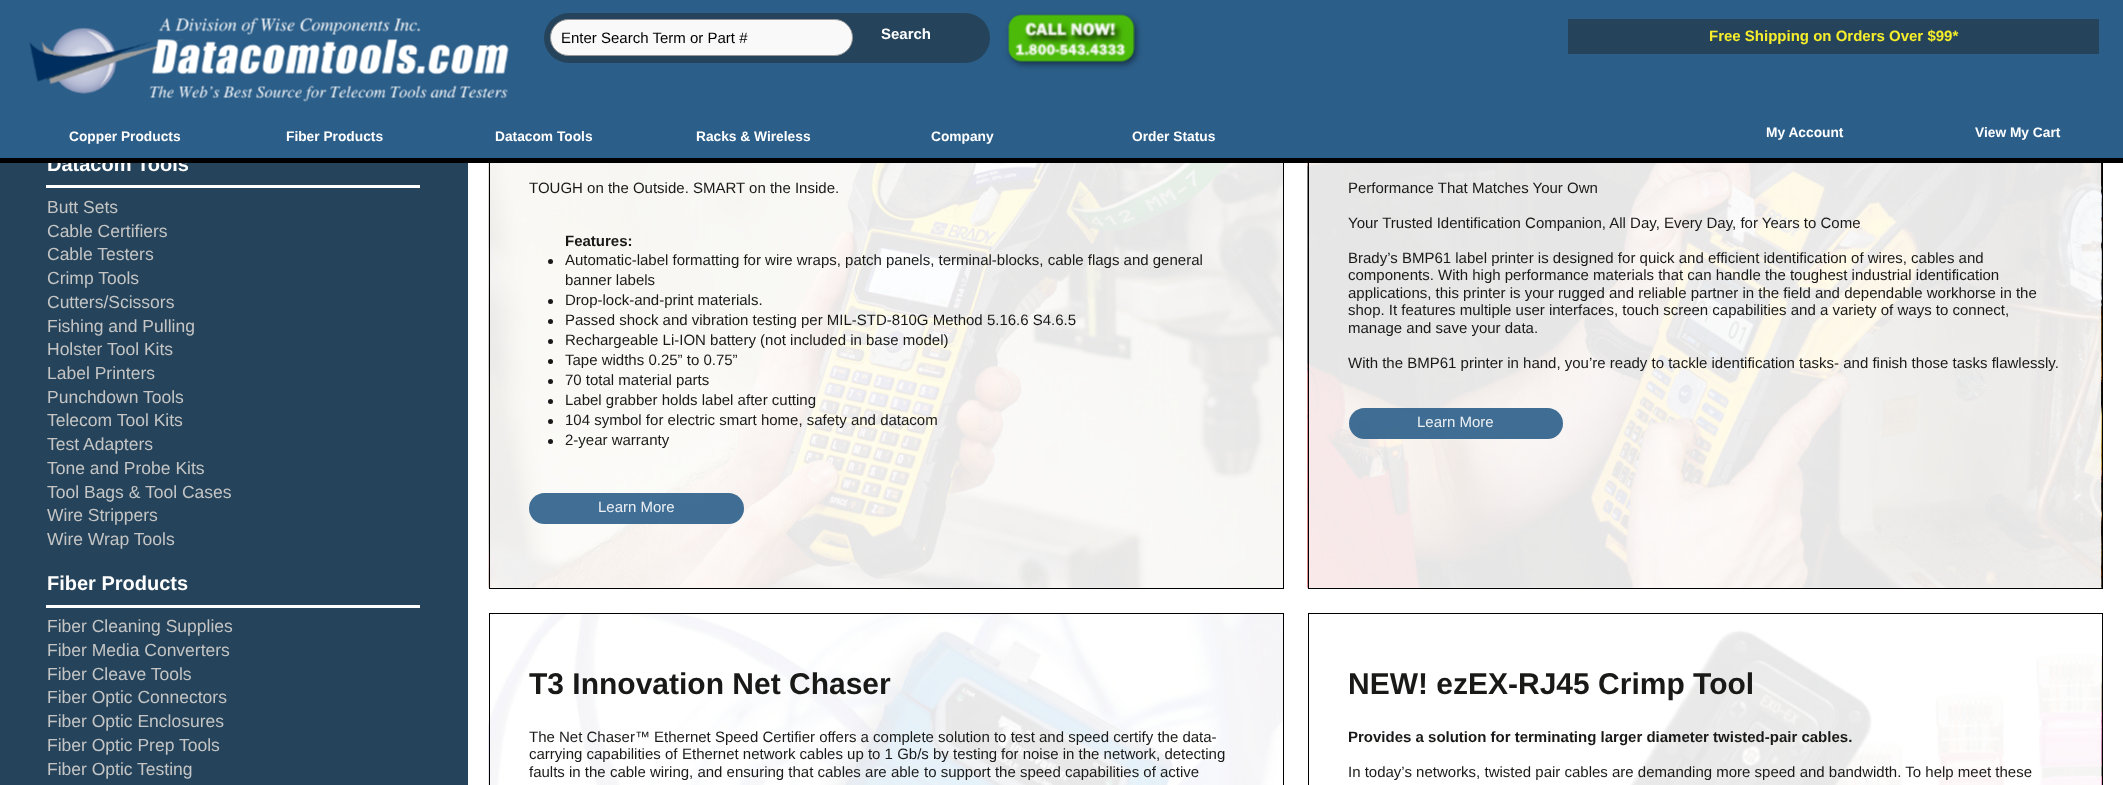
<svg xmlns="http://www.w3.org/2000/svg" xmlns:xlink="http://www.w3.org/1999/xlink" width="2123" height="785" viewBox="0 0 2123 785">
<style>
.cls-1{font:bold 20px Liberation Sans;fill:#ffffff}
.cls-2{font:bold 13.75px Liberation Sans;fill:#ffffff}
.cls-3{font:bold 15px Liberation Sans;fill:#ffffff}
.cls-4{font:bold 15px Liberation Sans;fill:#f6ee2a}
.cls-5{font:15px Liberation Sans;fill:#000000}
.cls-6{font:17.5px Liberation Sans;fill:#c5c5c5}
.cls-7{font:15px Liberation Sans;fill:#191918}
.cls-8{font:bold 15px Liberation Sans;fill:#191918}
.cls-9{font:15px Liberation Sans;fill:#ecf0f4}
.cls-10{font:bold 30px Liberation Sans;fill:#191918}
</style>
<rect width="100%" height="100%" fill="#ffffff"/>
<rect fill="#25445b" x="0" y="163" width="468" height="622"/>
<rect fill="#ffffff" x="46" y="185" width="374" height="3"/>
<rect fill="#ffffff" x="46" y="605" width="374" height="3"/>
<image xlink:href="image2.png" x="488" y="163" width="795" height="425"/>
<rect fill="none" stroke="#000000" x="489.5" y="64.5" width="794" height="524"/>
<circle fill="#191918" cx="550.5" cy="261.5" r="2.5"/>
<circle fill="#191919" cx="550.5" cy="301.5" r="2.5"/>
<circle fill="#191919" cx="550.5" cy="321.5" r="2.5"/>
<circle fill="#191919" cx="550.5" cy="341.5" r="2.5"/>
<circle fill="#141411" cx="550.5" cy="361.5" r="2.5"/>
<circle fill="#191919" cx="550.5" cy="381.5" r="2.5"/>
<circle fill="#191919" cx="550.5" cy="401.5" r="2.5"/>
<circle fill="#191919" cx="550.5" cy="421.5" r="2.5"/>
<circle fill="#191919" cx="550.5" cy="441.5" r="2.5"/>
<rect fill="#2b5e89" fill-opacity="0.9" x="529" y="493" width="215" height="31" rx="15.5"/>
<image xlink:href="image3.png" x="1307" y="163" width="795" height="425"/>
<rect fill="none" stroke="#000000" x="1308.5" y="64.5" width="794" height="524"/>
<rect fill="#2b5e89" fill-opacity="0.9" x="1349" y="408" width="214" height="31" rx="15.5"/>
<image xlink:href="image4.png" x="488" y="614" width="795" height="171"/>
<rect fill="none" stroke="#000000" x="489.5" y="613.5" width="794" height="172"/>
<image xlink:href="image5.png" x="1629" y="628" width="473" height="157"/>
<rect fill="none" stroke="#000000" x="1308.5" y="613.5" width="794" height="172"/>
<text class="cls-1" x="47" y="171">Datacom Tools</text>
<rect fill="#2b5e89" x="0" y="0" width="2123" height="158"/>
<text class="cls-2" x="1132" y="141">Order Status</text>
<text class="cls-2" x="931" y="141">Company</text>
<text class="cls-2" x="696" y="141">Racks &amp; Wireless</text>
<text class="cls-2" x="495" y="141">Datacom Tools</text>
<text class="cls-2" x="286" y="141">Fiber Products</text>
<text class="cls-2" x="69" y="141">Copper Products</text>
<rect fill="#25445b" x="544" y="13" width="446" height="50" rx="25"/>
<text class="cls-3" x="881" y="39">Search</text>
<text class="cls-2" x="1766" y="137">My Account</text>
<text class="cls-2" x="1975" y="137">View My Cart</text>
<rect fill="#25445b" x="1568" y="19" width="531" height="35"/>
<text class="cls-4" x="1709" y="41">Free Shipping on Orders Over $99*</text>
<rect fill="#000000" fill-opacity="0.5" filter="blur(3px)" x="1011" y="18" width="125" height="46" rx="13"/>
<image xlink:href="image1.png" x="1008" y="14" width="127" height="48"/>
<rect fill="#f9f9f9" stroke="#949598" x="550.5" y="19.5" width="302" height="36" rx="18"/>
<text class="cls-5" x="561" y="43">Enter Search Term or Part #</text>
<image xlink:href="image0.png" x="29" y="17" width="480" height="85"/>
<rect fill="#000000" x="0" y="158" width="2123" height="5"/>
<text class="cls-6"><tspan x="47" y="213">Butt Sets</tspan><tspan x="47" y="237">Cable Certifiers</tspan><tspan x="47" y="260">Cable Testers</tspan><tspan x="47" y="284">Crimp Tools</tspan><tspan x="47" y="308">Cutters/Scissors</tspan><tspan x="47" y="332">Fishing and Pulling</tspan><tspan x="47" y="355">Holster Tool Kits</tspan><tspan x="47" y="379">Label Printers</tspan><tspan x="47" y="403">Punchdown Tools</tspan><tspan x="47" y="426">Telecom Tool Kits</tspan><tspan x="47" y="450">Test Adapters</tspan><tspan x="47" y="474">Tone and Probe Kits</tspan><tspan x="47" y="498">Tool Bags &amp; Tool Cases</tspan><tspan x="47" y="521">Wire Strippers</tspan><tspan x="47" y="545">Wire Wrap Tools</tspan></text>
<text class="cls-1" x="47" y="590">Fiber Products</text>
<text class="cls-6"><tspan x="47" y="632">Fiber Cleaning Supplies</tspan><tspan x="47" y="656">Fiber Media Converters</tspan><tspan x="47" y="680">Fiber Cleave Tools</tspan><tspan x="47" y="703">Fiber Optic Connectors</tspan><tspan x="47" y="727">Fiber Optic Enclosures</tspan><tspan x="47" y="751">Fiber Optic Prep Tools</tspan><tspan x="47" y="775">Fiber Optic Testing</tspan></text>
<text class="cls-7" x="529" y="193">TOUGH on the Outside. SMART on the Inside.</text>
<text class="cls-8" x="565" y="246">Features:</text>
<text class="cls-7"><tspan x="565" y="265">Automatic-label formatting for wire wraps, patch panels, terminal-blocks, cable flags and general</tspan><tspan x="565" y="285">banner labels</tspan><tspan x="565" y="305">Drop-lock-and-print materials.</tspan><tspan x="565" y="325">Passed shock and vibration testing per MIL-STD-810G Method 5.16.6 S4.6.5</tspan><tspan x="565" y="345">Rechargeable Li-ION battery (not included in base model)</tspan><tspan x="565" y="365">Tape widths 0.25” to 0.75”</tspan><tspan x="565" y="385">70 total material parts</tspan><tspan x="565" y="405">Label grabber holds label after cutting</tspan><tspan x="565" y="425">104 symbol for electric smart home, safety and datacom</tspan><tspan x="565" y="445">2-year warranty</tspan></text>
<text class="cls-9" x="598" y="512">Learn More</text>
<text class="cls-7" x="1348" y="193">Performance That Matches Your Own</text>
<text class="cls-7" x="1348" y="228">Your Trusted Identification Companion, All Day, Every Day, for Years to Come</text>
<text class="cls-7"><tspan x="1348" y="263">Brady’s BMP61 label printer is designed for quick and efficient identification of wires, cables and</tspan><tspan x="1348" y="280">components. With high performance materials that can handle the toughest industrial identification</tspan><tspan x="1348" y="298">applications, this printer is your rugged and reliable partner in the field and dependable workhorse in the</tspan><tspan x="1348" y="315">shop. It features multiple user interfaces, touch screen capabilities and a variety of ways to connect,</tspan><tspan x="1348" y="333">manage and save your data.</tspan></text>
<text class="cls-7" x="1348" y="368">With the BMP61 printer in hand, you’re ready to tackle identification tasks- and finish those tasks flawlessly.</text>
<text class="cls-9" x="1417" y="427">Learn More</text>
<text class="cls-10" x="529" y="694">T3 Innovation Net Chaser</text>
<text class="cls-7"><tspan x="529" y="742">The Net Chaser™ Ethernet Speed Certifier offers a complete solution to test and speed certify the data-</tspan><tspan x="529" y="759">carrying capabilities of</tspan></text>
<text class="cls-7" x="682" y="759">Ethernet network cables up to 1 Gb/s by testing</text>
<text class="cls-7" x="1001" y="759">for noise in the network, detecting</text>
<text class="cls-7" x="529" y="777">faults in the cable wiring, and ensuring that cables are able</text>
<text class="cls-7" x="924" y="777">to support the speed capabilities of</text>
<text class="cls-7" x="1160" y="777">active</text>
<text class="cls-10" x="1348" y="694">NEW! ezEX-RJ45 Crimp Tool</text>
<text class="cls-8" x="1348" y="742">Provides a solution for terminating larger diameter twisted-pair cables.</text>
<text class="cls-7" x="1348" y="777">In today’s networks, twisted pair cables are demanding more speed and bandwidth. To help meet these</text>
</svg>
